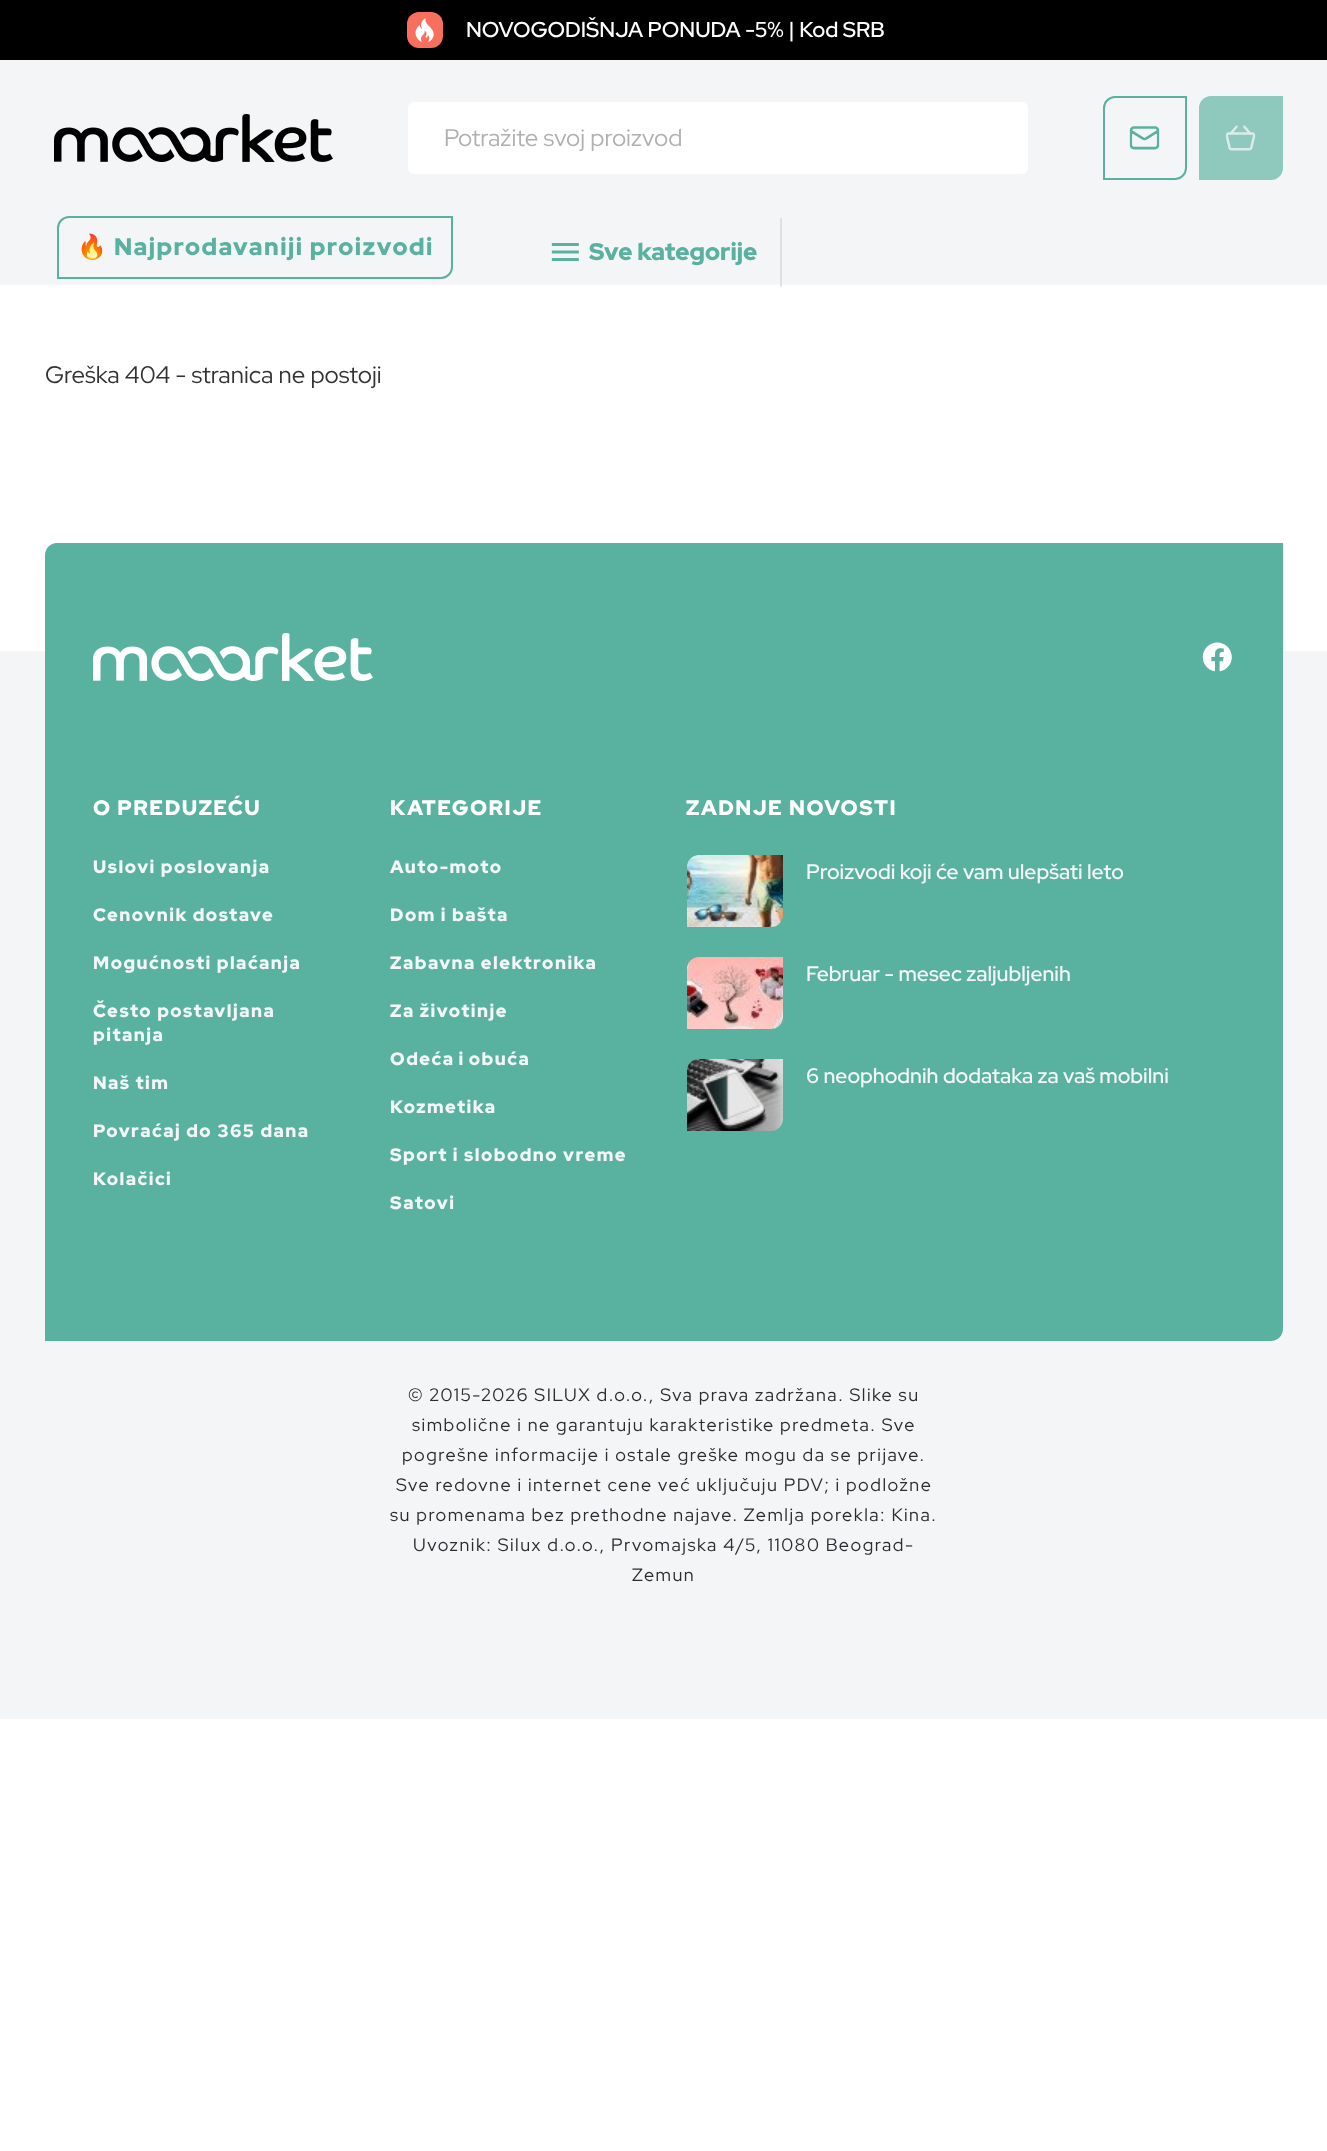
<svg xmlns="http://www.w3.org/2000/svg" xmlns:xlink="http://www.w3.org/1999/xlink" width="1327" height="2151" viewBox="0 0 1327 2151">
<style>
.cls-1{font:500 21.6px Red Hat Display;fill:#ffffff}
.cls-2{font:24px Red Hat Display;fill:#b0b0b0}
.cls-3{font:bold 24px Noto Color Emoji;letter-spacing:1.5px;fill:#59b1a0}
.cls-4{font:900 24px Red Hat Display;letter-spacing:1.5px;fill:#59b1a0}
.cls-5{font:900 24px Red Hat Display;fill:#59b1a0}
.cls-6{font:24px Red Hat Display;fill:#333333}
.cls-7{font:900 21px Red Hat Display;letter-spacing:1.5px;fill:#ffffff}
.cls-8{font:900 18px Red Hat Display;letter-spacing:1.5px;fill:#f4f5f7}
.cls-9{font:500 21px Red Hat Display;fill:#f4f5f7}
.cls-10{font:18px Red Hat Display;letter-spacing:1.5px;fill:#292d30}
</style>
<rect width="100%" height="100%" fill="#ffffff"/>
<rect fill="#e7e7e7" x="780" y="285" width="2" height="2"/>
<rect fill="#000000" x="0" y="0" width="1327" height="60"/>
<rect fill="#f96f5d" x="407" y="12" width="36" height="36" rx="12"/>
<image xlink:href="image0.png" x="415" y="18" width="19" height="24"/>
<rect fill="#f4f5f7" x="0" y="60" width="1327" height="225"/>
<rect fill="#e0e0e2" x="780" y="218" width="2" height="67"/>
<image xlink:href="image1.png" x="54" y="114" width="279" height="48"/>
<rect fill="#ffffff" x="408" y="102" width="620" height="72" rx="6"/>
<path fill="none" stroke="#59b1a0" stroke-width="2" d="M1115 97H1186V168C1186 174 1181 179 1175 179H1104V108C1104 102 1109 97 1115 97Z"/>
<image xlink:href="image2.png" x="1129" y="126" width="31" height="24"/>
<path fill="#8fc9be" stroke="#8fc9be" stroke-width="2" d="M1211 97H1282V168C1282 174 1277 179 1271 179H1200V108C1200 102 1205 97 1211 97Z"/>
<image xlink:href="image3.png" x="1225" y="125" width="31" height="26"/>
<path fill="none" stroke="#59b1a0" stroke-width="2" d="M69 217H452V267C452 273 447 278 441 278H58V228C58 222 63 217 69 217Z"/>
<image xlink:href="image4.png" x="551" y="243" width="28" height="18"/>
<rect fill="#f4f5f7" x="0" y="651" width="1327" height="1068"/>
<path fill="#59b1a0" d="M57 543H1283V1329C1283 1335.5 1277.5 1341 1271 1341H45V555C45 548.5 50.5 543 57 543Z"/>
<image xlink:href="image5.png" x="93" y="633" width="280" height="48"/>
<image xlink:href="image6.png" x="1202" y="642" width="30" height="30"/>
<image xlink:href="image7.png" x="687" y="855" width="96" height="72"/>
<image xlink:href="image8.png" x="687" y="957" width="96" height="72"/>
<image xlink:href="image9.png" x="687" y="1059" width="96" height="72"/>
<text class="cls-1" x="466" y="37">NOVOGODIŠNJA PONUDA -5% | Kod SRB</text>
<text class="cls-2" x="444" y="146">Potražite svoj proizvod</text>
<text class="cls-3" x="77" y="255">🔥</text>
<text class="cls-4" x="114" y="255">Najprodavaniji proizvodi</text>
<text class="cls-5" x="589" y="260">Sve kategorije</text>
<text class="cls-6" x="45" y="383">Greška 404 - stranica ne postoji</text>
<text class="cls-7" x="93" y="815">O PREDUZEĆU</text>
<text class="cls-8" x="93" y="873">Uslovi poslovanja</text>
<text class="cls-8" x="93" y="921">Cenovnik dostave</text>
<text class="cls-8" x="93" y="969">Mogućnosti plaćanja</text>
<text class="cls-8"><tspan x="93" y="1017">Često postavljana</tspan><tspan x="93" y="1041">pitanja</tspan></text>
<text class="cls-8" x="93" y="1089">Naš tim</text>
<text class="cls-8" x="93" y="1137">Povraćaj do 365 dana</text>
<text class="cls-8" x="93" y="1185">Kolačici</text>
<text class="cls-7" x="390" y="815">KATEGORIJE</text>
<text class="cls-8" x="390" y="873">Auto-moto</text>
<text class="cls-8" x="390" y="921">Dom i bašta</text>
<text class="cls-8" x="390" y="969">Zabavna elektronika</text>
<text class="cls-8" x="390" y="1017">Za životinje</text>
<text class="cls-8" x="390" y="1065" word-spacing="-1">Odeća i obuća</text>
<text class="cls-8" x="390" y="1113">Kozmetika</text>
<text class="cls-8" x="390" y="1161">Sport i slobodno vreme</text>
<text class="cls-8" x="390" y="1209">Satovi</text>
<text class="cls-7" x="686" y="815">ZADNJE NOVOSTI</text>
<text class="cls-9" x="806" y="879">Proizvodi koji će vam ulepšati leto</text>
<text class="cls-9" x="806" y="981">Februar - mesec zaljubljenih</text>
<text class="cls-9" x="806" y="1083">6 neophodnih dodataka za vaš mobilni</text>
<text class="cls-10" x="408" y="1401">© 2015-2026 SILUX d.o.o., Sva prava zadržana. Slike su</text>
<text class="cls-10" x="412" y="1431">simbolične i ne garantuju karakteristike predmeta. Sve</text>
<text class="cls-10" x="402" y="1461">pogrešne informacije i ostale greške mogu da se prijave.</text>
<text class="cls-10" x="396" y="1491">Sve redovne i internet cene već uključuju PDV; i podložne</text>
<text class="cls-10" x="390" y="1521">su promenama bez prethodne najave. Zemlja porekla: Kina.</text>
<text class="cls-10" x="413" y="1551">Uvoznik: Silux d.o.o., Prvomajska 4/5, 11080 Beograd-</text>
<text class="cls-10" x="632" y="1581">Zemun</text>
</svg>
